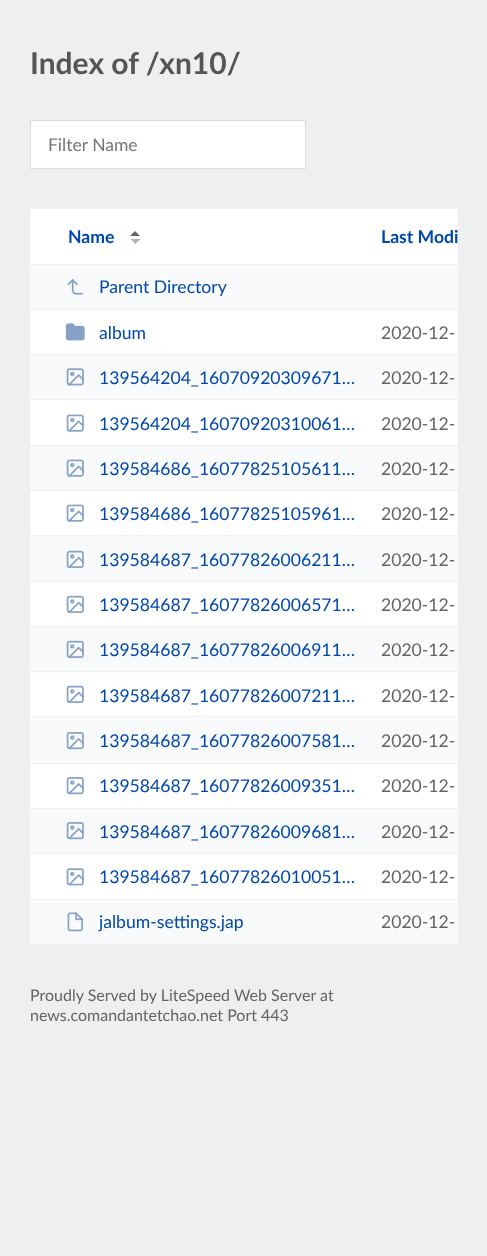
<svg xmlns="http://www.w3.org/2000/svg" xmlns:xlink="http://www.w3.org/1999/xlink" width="487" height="1256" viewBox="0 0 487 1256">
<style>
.cls-1{font:bold 30px Lato;fill:#555555}
.cls-2{font:17.5px Lato;fill:#757575}
.cls-3{font:bold 17.6px Lato;fill:#0047ab}
.cls-4{font:17.6px Lato;fill:#0047ab}
.cls-5{font:17.6px Lato;fill:#646464}
.cls-6{font:16px Lato;fill:#646464}
</style>
<rect width="100%" height="100%" fill="#edeff0"/>
<rect fill="#ffffff" stroke="#dddddd" x="30.5" y="120.5" width="275" height="48"/>
<rect fill="#ffffff" x="30" y="209" width="428" height="690"/>
<path fill="#666666" d="M140 236H130L135 231Z"/>
<path fill="#b3b3b3" d="M130.5 239H140.5L135.5 244Z"/>
<rect fill="#f8fafb" x="30" y="265" width="428" height="44"/>
<rect fill="#edeff0" x="30" y="264" width="428" height="1"/>
<rect fill="#edeff0" x="30" y="309" width="428" height="1"/>
<image xlink:href="image0.png" x="67" y="279" width="16" height="16"/>
<image xlink:href="image1.png" x="65" y="323" width="20" height="18"/>
<rect fill="#f8fafb" x="30" y="355" width="428" height="44"/>
<rect fill="#edeff0" x="30" y="354" width="428" height="1"/>
<rect fill="#edeff0" x="30" y="399" width="428" height="1"/>
<image xlink:href="image2.png" x="66" y="368" width="18" height="18"/>
<image xlink:href="image3.png" x="66" y="414" width="18" height="18"/>
<rect fill="#f8fafb" x="30" y="446" width="428" height="44"/>
<rect fill="#edeff0" x="30" y="445" width="428" height="1"/>
<rect fill="#edeff0" x="30" y="490" width="428" height="1"/>
<image xlink:href="image4.png" x="66" y="459" width="18" height="18"/>
<image xlink:href="image3.png" x="66" y="504" width="18" height="18"/>
<rect fill="#f8fafb" x="30" y="536" width="428" height="45"/>
<rect fill="#edeff0" x="30" y="535" width="428" height="1"/>
<rect fill="#edeff0" x="30" y="581" width="428" height="1"/>
<image xlink:href="image5.png" x="66" y="550" width="18" height="18"/>
<image xlink:href="image6.png" x="66" y="595" width="18" height="18"/>
<rect fill="#f8fafb" x="30" y="627" width="428" height="46"/>
<rect fill="#edeff0" x="30" y="626" width="428" height="1"/>
<rect fill="#edeff0" x="30" y="671" width="428" height="1"/>
<image xlink:href="image5.png" x="66" y="640" width="18" height="18"/>
<image xlink:href="image6.png" x="66" y="685" width="18" height="18"/>
<rect fill="#f8fafb" x="30" y="718" width="428" height="45"/>
<rect fill="#edeff0" x="30" y="716" width="428" height="1"/>
<rect fill="#edeff0" x="30" y="763" width="428" height="1"/>
<image xlink:href="image7.png" x="66" y="732" width="18" height="18"/>
<image xlink:href="image8.png" x="66" y="777" width="18" height="18"/>
<rect fill="#f8fafb" x="30" y="809" width="428" height="44"/>
<rect fill="#edeff0" x="30" y="808" width="428" height="1"/>
<rect fill="#edeff0" x="30" y="853" width="428" height="1"/>
<image xlink:href="image7.png" x="66" y="822" width="18" height="18"/>
<image xlink:href="image9.png" x="66" y="868" width="18" height="18"/>
<rect fill="#f8fafb" x="30" y="900" width="428" height="44"/>
<image xlink:href="image10.png" x="67" y="912" width="16" height="20"/>
<text class="cls-1" x="30" y="74">Index of /xn10/</text>
<text class="cls-2" x="48" y="151">Filter Name</text>
<text class="cls-3" x="68" y="243">Name</text>
<text class="cls-3" x="381" y="243">Last Modi</text>
<text class="cls-4" x="99" y="293">Parent Directory</text>
<text class="cls-4" x="99" y="339">album</text>
<text class="cls-5" x="381" y="339">2020-12-</text>
<text class="cls-4" x="99" y="384">139564204_16070920309671…</text>
<text class="cls-5" x="381" y="384">2020-12-</text>
<text class="cls-4" x="99" y="430">139564204_16070920310061…</text>
<text class="cls-5" x="381" y="430">2020-12-</text>
<text class="cls-4" x="99" y="475">139584686_16077825105611…</text>
<text class="cls-5" x="381" y="475">2020-12-</text>
<text class="cls-4" x="99" y="520">139584686_16077825105961…</text>
<text class="cls-5" x="381" y="520">2020-12-</text>
<text class="cls-4" x="99" y="566">139584687_16077826006211…</text>
<text class="cls-5" x="381" y="566">2020-12-</text>
<text class="cls-4" x="99" y="611">139584687_16077826006571…</text>
<text class="cls-5" x="381" y="611">2020-12-</text>
<text class="cls-4" x="99" y="656">139584687_16077826006911…</text>
<text class="cls-5" x="381" y="656">2020-12-</text>
<text class="cls-4" x="99" y="702">139584687_16077826007211…</text>
<text class="cls-5" x="381" y="702">2020-12-</text>
<text class="cls-4" x="99" y="747">139584687_16077826007581…</text>
<text class="cls-5" x="381" y="747">2020-12-</text>
<text class="cls-4" x="99" y="792">139584687_16077826009351…</text>
<text class="cls-5" x="381" y="792">2020-12-</text>
<text class="cls-4" x="99" y="838">139584687_16077826009681…</text>
<text class="cls-5" x="381" y="838">2020-12-</text>
<text class="cls-4" x="99" y="883">139584687_16077826010051…</text>
<text class="cls-5" x="381" y="883">2020-12-</text>
<text class="cls-4" x="99" y="928">jalbum-settings.jap</text>
<text class="cls-5" x="381" y="928">2020-12-</text>
<text class="cls-6"><tspan x="30" y="1001">Proudly Served by LiteSpeed Web Server at</tspan><tspan x="30" y="1021">news.comandantetchao.net Port 443</tspan></text>
</svg>
